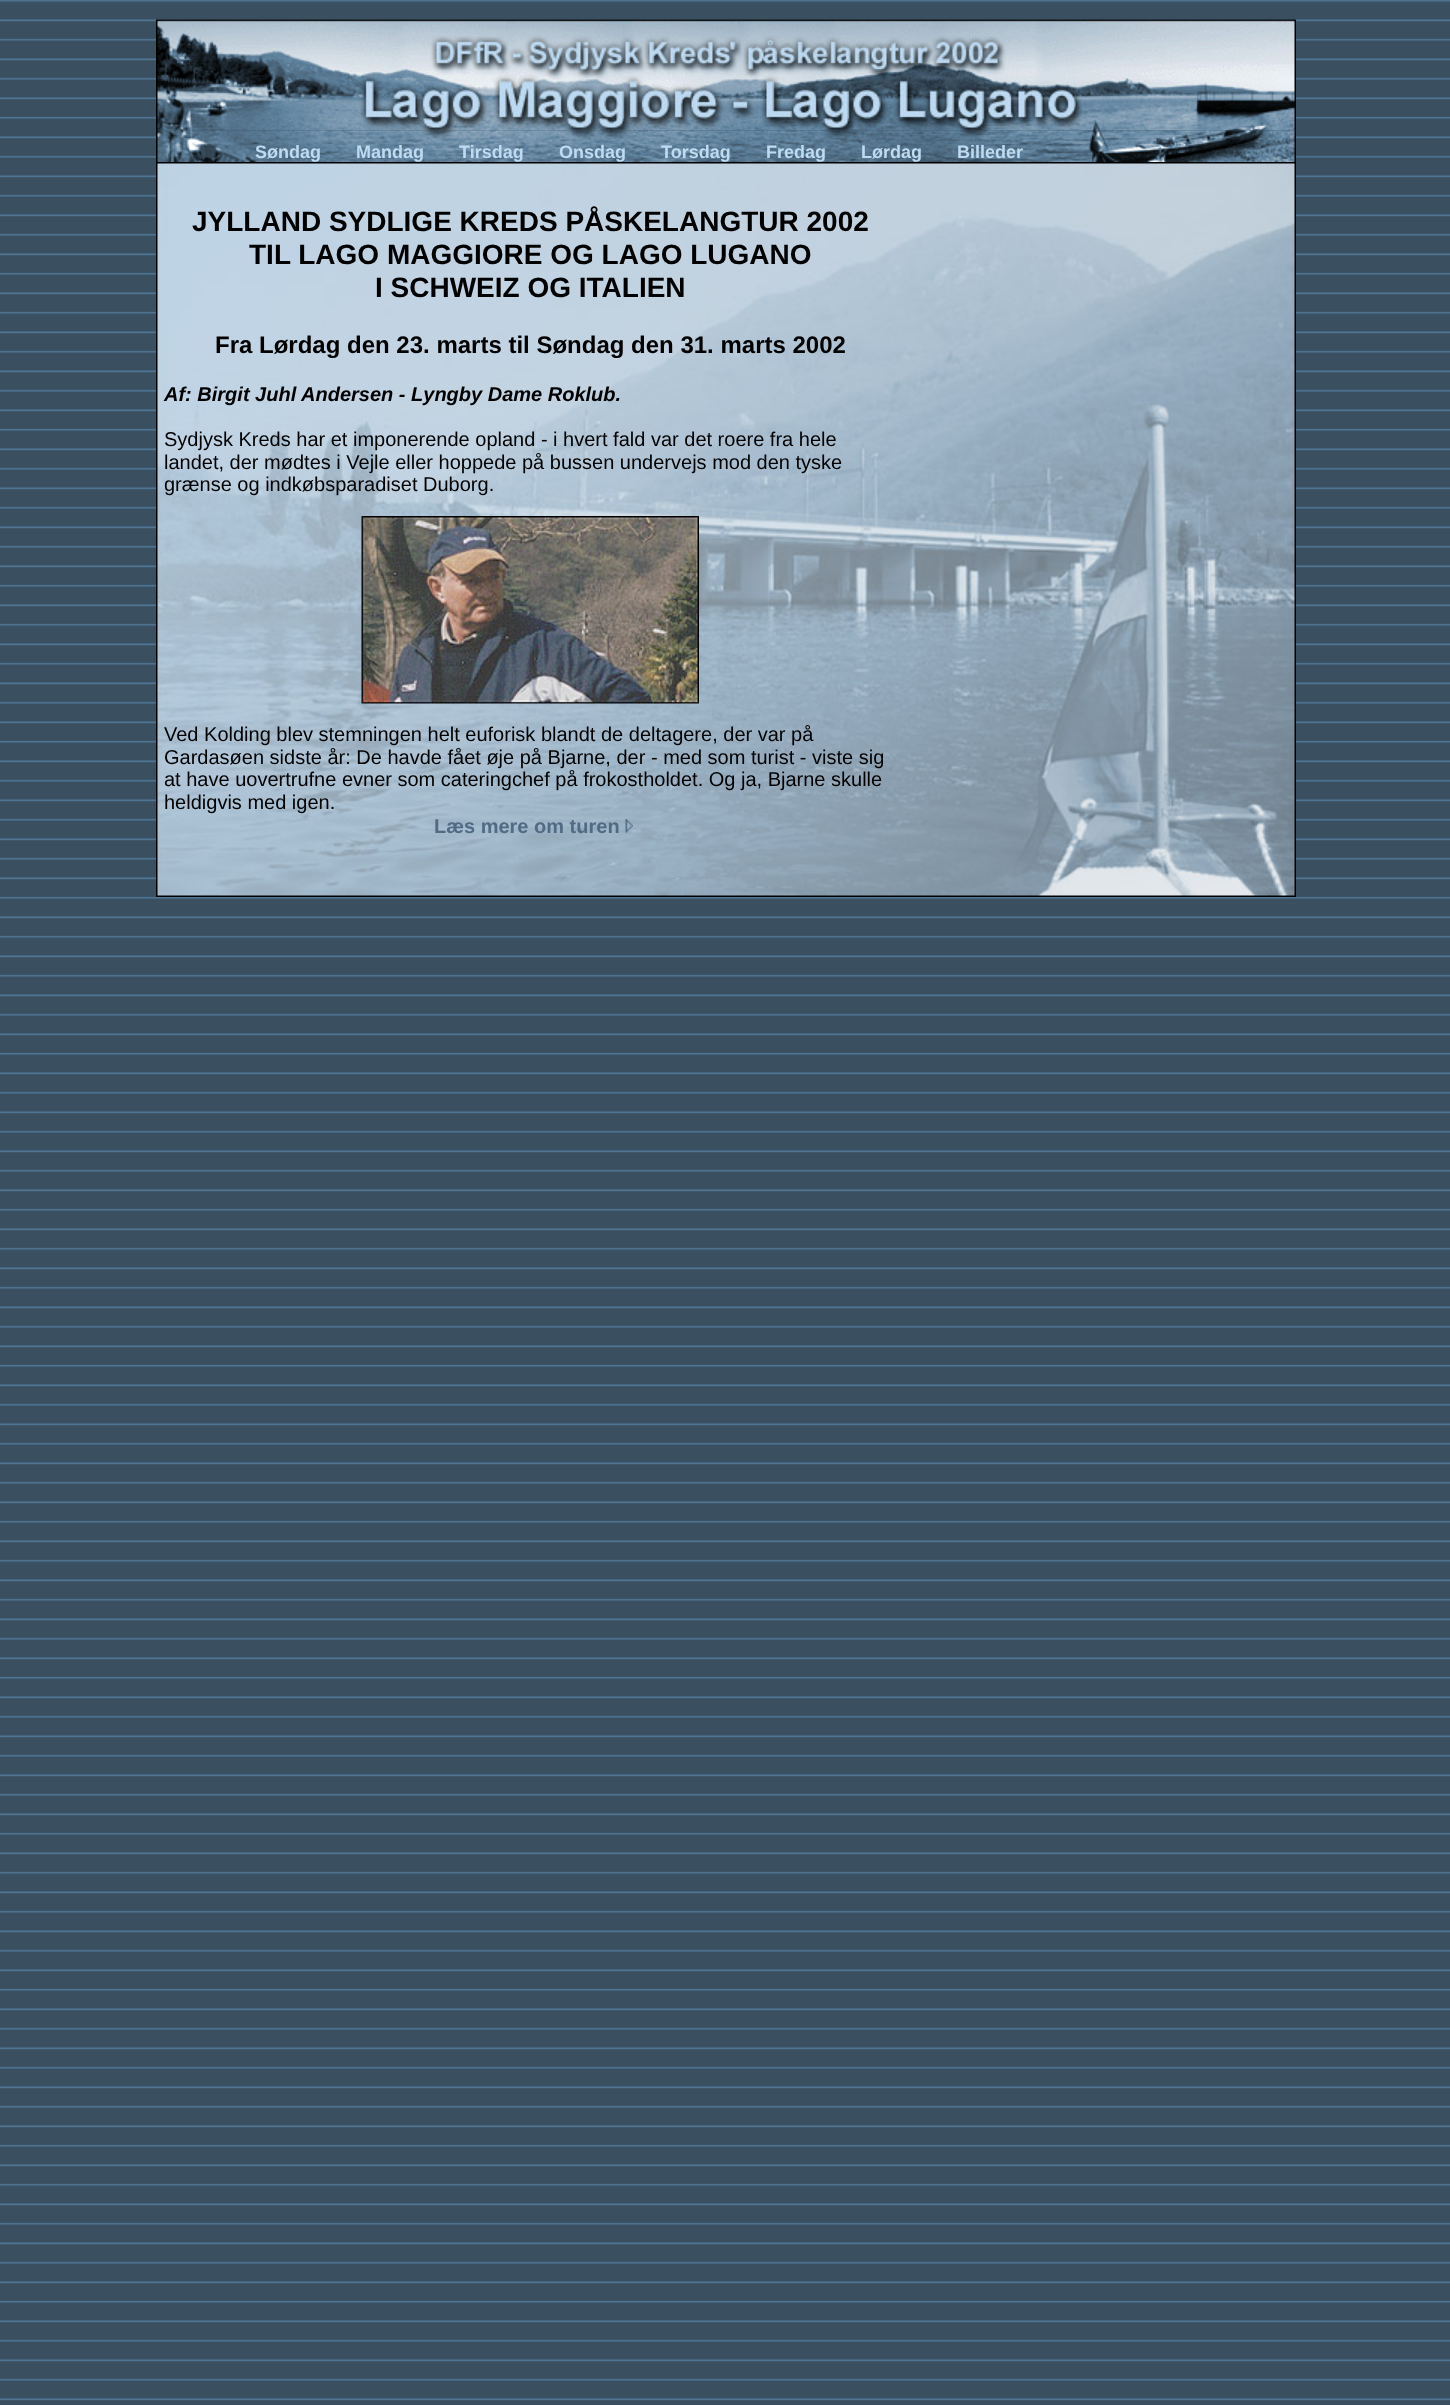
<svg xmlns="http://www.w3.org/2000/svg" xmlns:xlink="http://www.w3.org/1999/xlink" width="1450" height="2405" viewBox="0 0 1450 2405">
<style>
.cls-1{font:bold 18px Liberation Sans;fill:#bedbf1}
.cls-2{font:bold 28px Liberation Sans;fill:#000000}
.cls-3{font:bold 24px Liberation Sans;fill:#000000}
.cls-4{font:italic bold 20px Liberation Sans;fill:#000000}
.cls-5{font:20px Liberation Sans;fill:#000000}
.cls-6{font:bold 20px Liberation Sans;fill:#526b84}
</style>
<rect width="100%" height="100%" fill="#3a4f60"/>
<image xlink:href="image0.png" x="0" y="0" width="1450" height="2401"/>
<image xlink:href="image1.png" x="156" y="19" width="1140" height="112"/>
<image xlink:href="image2.png" x="156" y="130" width="1140" height="32"/>
<rect fill="#000000" x="156" y="162" width="1140" height="2"/>
<rect fill="#000000" x="156" y="895" width="1140" height="2"/>
<image xlink:href="image3.png" x="156" y="163" width="750" height="733"/>
<image xlink:href="image4.png" x="361" y="516" width="338" height="188"/>
<image xlink:href="image5.png" x="625" y="819" width="8" height="14"/>
<image xlink:href="image6.png" x="906" y="163" width="390" height="733"/>
<text class="cls-1" x="255" y="158">Søndag</text>
<text class="cls-1" x="356" y="158">Mandag</text>
<text class="cls-1" x="459" y="158">Tirsdag</text>
<text class="cls-1" x="559" y="158">Onsdag</text>
<text class="cls-1" x="661" y="158">Torsdag</text>
<text class="cls-1" x="766" y="158">Fredag</text>
<text class="cls-1" x="861" y="158">Lørdag</text>
<text class="cls-1" x="957" y="158">Billeder</text>
<text class="cls-2" x="192" y="231">JYLLAND SYDLIGE KREDS PÅSKELANGTUR 2002</text>
<text class="cls-2" x="249" y="264">TIL LAGO MAGGIORE OG LAGO LUGANO</text>
<text class="cls-2" x="375" y="297">I SCHWEIZ OG ITALIEN</text>
<text class="cls-3" x="215" y="353">Fra Lørdag den 23. marts til Søndag den 31. marts 2002</text>
<text class="cls-4" x="164" y="401">Af: Birgit Juhl Andersen - Lyngby Dame Roklub.</text>
<text class="cls-5"><tspan x="164" y="446">Sydjysk Kreds har et imponerende opland - i hvert fald var det roere fra hele</tspan><tspan x="164" y="469">landet, der mødtes i Vejle eller hoppede på bussen undervejs mod den tyske</tspan><tspan x="164" y="491">grænse og indkøbsparadiset Duborg.</tspan></text>
<text class="cls-5"><tspan x="164" y="741">Ved Kolding blev stemningen helt euforisk blandt de deltagere, der var på</tspan><tspan x="164" y="764">Gardasøen sidste år: De havde fået øje på Bjarne, der - med som turist - viste sig</tspan><tspan x="164" y="786">at have uovertrufne evner som cateringchef på frokostholdet. Og ja, Bjarne skulle</tspan><tspan x="164" y="809">heldigvis med igen.</tspan></text>
<text class="cls-6" x="434" y="833">Læs mere om turen</text>
</svg>
